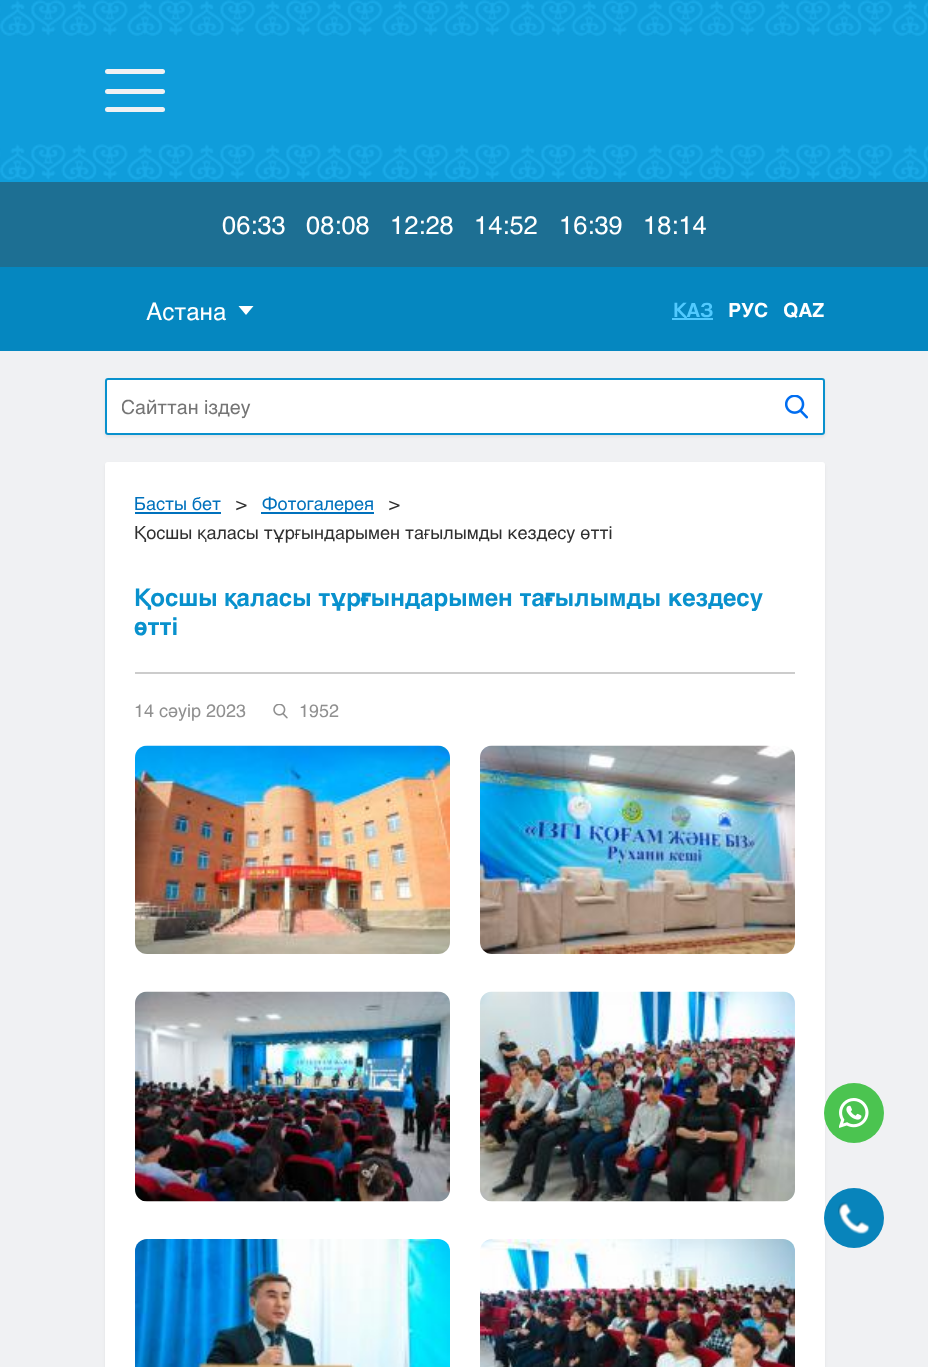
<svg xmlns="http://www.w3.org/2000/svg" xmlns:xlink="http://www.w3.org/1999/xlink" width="928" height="1367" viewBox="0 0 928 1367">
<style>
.cls-1{font:25.5px Helvetica;fill:#ffffff}
.cls-2{font:24px Helvetica;fill:#ffffff}
.cls-3{font:bold 19.5px Helvetica;fill:#51caff}
.cls-4{font:bold 19.5px Helvetica;fill:#ffffff}
.cls-5{font:19.5px Helvetica;fill:#757575}
.cls-6{font:18px Helvetica;fill:#0071bd}
.cls-7{font:18px Helvetica;fill:#303030}
.cls-8{font:bold 24px Helvetica;fill:#0991cd}
.cls-9{font:18px Helvetica;fill:#909090}
</style>
<defs>
<clipPath id="clip1"><rect x="122" y="395" width="681" height="24"/></clipPath>
</defs>
<rect width="100%" height="100%" fill="#f0f1f3"/>
<rect fill="#0f9ddb" x="0" y="0" width="928" height="182"/>
<image xlink:href="image0.png" x="0" y="0" width="928" height="36"/>
<rect fill="#f0f1f3" x="105" y="69" width="60" height="5" rx="2.5"/>
<rect fill="#f0f1f3" x="105" y="89" width="60" height="5" rx="2.5"/>
<rect fill="#f0f1f3" x="105" y="107" width="60" height="5" rx="2.5"/>
<image xlink:href="image1.png" x="0" y="144" width="928" height="36"/>
<rect fill="#1d6f93" x="0" y="182" width="928" height="85"/>
<rect fill="#0587c0" x="0" y="267" width="928" height="84"/>
<path fill="#ffffff" d="M238.5 306H253.5L246 315Z"/>
<rect fill="#51caff" x="672" y="318" width="41" height="2"/>
<rect fill="#000000" fill-opacity="0.06" filter="blur(1.5px)" x="105" y="380" width="720" height="57" rx="3"/>
<rect fill="#ffffff" x="105" y="378" width="720" height="57" rx="3"/>
<image xlink:href="image2.png" x="785" y="395" width="24" height="24"/>
<rect fill="none" stroke="#0991cd" stroke-width="2" x="106" y="379" width="718" height="55" rx="2"/>
<rect fill="#000000" fill-opacity="0.06" filter="blur(1.5px)" x="105" y="464" width="720" height="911" rx="3"/>
<rect fill="#ffffff" x="105" y="462" width="720" height="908" rx="3"/>
<rect fill="#0071bd" x="135" y="512" width="86" height="2"/>
<rect fill="#0071bd" x="261" y="512" width="113" height="2"/>
<rect fill="#cccccc" x="135" y="672" width="660" height="2"/>
<image xlink:href="image3.png" x="273" y="704" width="15" height="15"/>
<image xlink:href="image4.png" x="135" y="745" width="315" height="209"/>
<image xlink:href="image5.png" x="480" y="745" width="315" height="209"/>
<image xlink:href="image6.png" x="135" y="991" width="315" height="211"/>
<image xlink:href="image7.png" x="480" y="991" width="315" height="211"/>
<image xlink:href="image8.png" x="135" y="1239" width="315" height="128"/>
<image xlink:href="image9.png" x="480" y="1239" width="315" height="128"/>
<circle fill="#4bc450" cx="854" cy="1113" r="30"/>
<image xlink:href="image10.png" x="839" y="1098" width="30" height="30"/>
<circle fill="#0884bb" cx="854" cy="1218" r="30"/>
<image xlink:href="image11.png" x="838" y="1202" width="32" height="32"/>
<text class="cls-1" x="222" y="234">06:33</text>
<text class="cls-1" x="306" y="234">08:08</text>
<text class="cls-1" x="390" y="234">12:28</text>
<text class="cls-1" x="474" y="234">14:52</text>
<text class="cls-1" x="559" y="234">16:39</text>
<text class="cls-1" x="643" y="234">18:14</text>
<text class="cls-2" x="146" y="320">Астана</text>
<text class="cls-3" x="673" y="317">ҚАЗ</text>
<text class="cls-4" x="728" y="317">РУС</text>
<text class="cls-4" x="783" y="317">QAZ</text>
<g clip-path="url(#clip1)">
<text class="cls-5" x="121" y="414">Сайттан іздеу</text>
</g>
<text class="cls-6" x="134" y="510">Басты бет</text>
<text class="cls-7" x="236" y="510">&gt;</text>
<text class="cls-6" x="262" y="510">Фотогалерея</text>
<text class="cls-7" x="389" y="510">&gt;</text>
<text class="cls-7" x="134" y="539">Қосшы қаласы тұрғындарымен тағылымды кездесу өтті</text>
<text class="cls-8"><tspan x="134" y="606">Қосшы қаласы тұрғындарымен тағылымды кездесу</tspan><tspan x="134" y="635">өтті</tspan></text>
<text class="cls-9" x="134" y="717">14 сәуір 2023</text>
<text class="cls-9" x="299" y="717">1952</text>
</svg>
